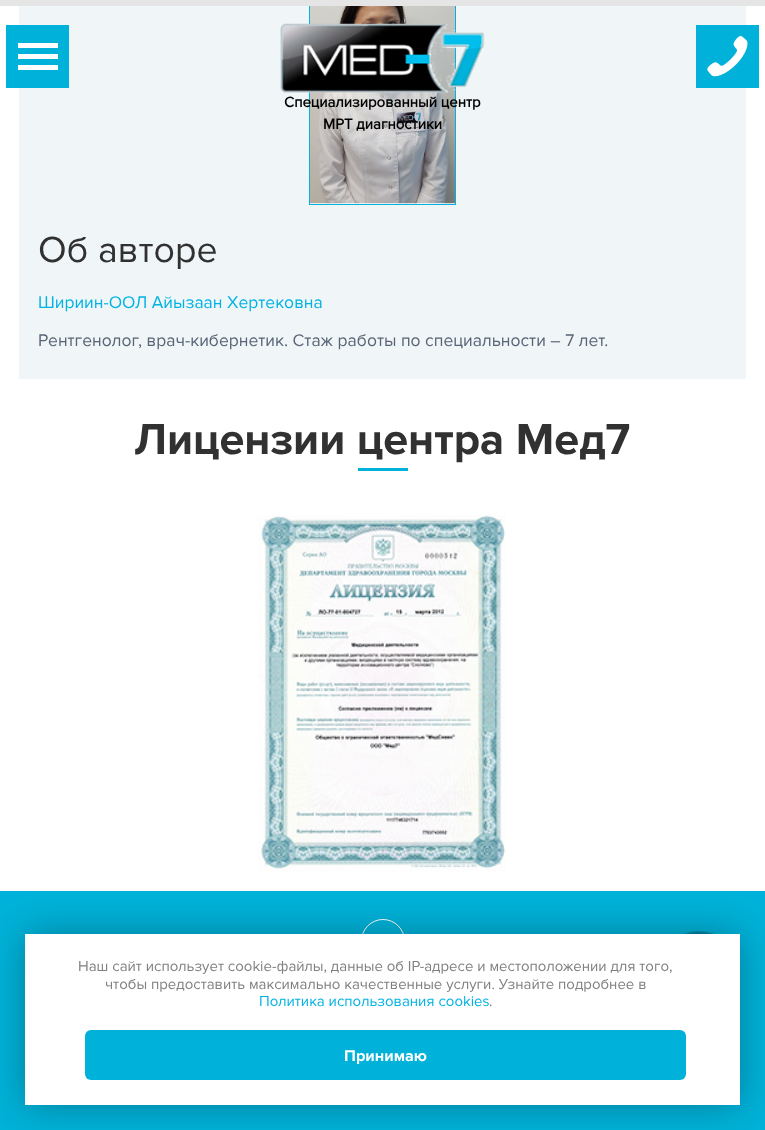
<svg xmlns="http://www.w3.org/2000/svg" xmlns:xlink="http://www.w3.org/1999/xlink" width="765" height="1130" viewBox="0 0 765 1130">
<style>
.cls-1{font:bold 15px 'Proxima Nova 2';fill:#000000}
.cls-2{font:37.5px Proxima Nova;fill:#313131}
.cls-3{font:17.5px Proxima Nova;fill:#00b3e3}
.cls-4{font:17.5px Proxima Nova;fill:#586577}
.cls-5{font:bold 45px Proxima Nova;fill:#313131}
.cls-6{font:15px Proxima Nova;fill:#808080}
.cls-7{font:15px Proxima Nova;fill:#00b3e3}
.cls-8{font:bold 16.25px Proxima Nova;fill:#ffffff}
</style>
<rect width="100%" height="100%" fill="#ffffff"/>
<rect fill="#f0f5f7" x="19" y="6" width="727" height="373"/>
<rect fill="#ffffff" x="310" y="203" width="145" height="1"/>
<rect fill="none" stroke="#00b3e3" x="309.5" y="-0.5" width="146" height="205"/>
<rect fill="#e5e5e5" x="0" y="0" width="765" height="6"/>
<rect fill="#00b2d9" x="6" y="25" width="63" height="63"/>
<rect fill="#ffffff" x="18" y="43" width="40" height="5"/>
<rect fill="#ffffff" x="18" y="54" width="40" height="5"/>
<rect fill="#ffffff" x="18" y="65" width="40" height="5"/>
<rect fill="#00b2d9" x="696" y="25" width="63" height="63"/>
<image xlink:href="image0.png" x="707" y="36" width="41" height="41"/>
<image xlink:href="image2.png" x="310" y="6" width="145" height="198"/>
<image xlink:href="image1.png" x="280" y="23" width="205" height="70"/>
<rect fill="#00b2d9" x="358" y="468" width="50" height="3"/>
<image xlink:href="image3.png" x="258" y="515" width="248" height="357"/>
<rect fill="#00b2d9" x="0" y="891" width="765" height="239"/>
<circle fill="none" stroke="#ffffff" cx="383" cy="941" r="21.5"/>
<image xlink:href="image4.png" x="683" y="931" width="32" height="3"/>
<rect fill="#000000" fill-opacity="0.3" filter="blur(19px)" x="25" y="934" width="715" height="171"/>
<rect fill="#ffffff" x="25" y="934" width="715" height="171"/>
<rect fill="#00b2d9" x="85" y="1030" width="601" height="50" rx="6"/>
<text class="cls-1" x="284" y="107">Специализированный центр</text>
<text class="cls-1" x="323" y="129">МРТ диагностики</text>
<text class="cls-2" x="38" y="262">Об авторе</text>
<text class="cls-3" x="38" y="308">Шириин-ООЛ Айызаан Хертековна</text>
<text class="cls-4" x="38" y="346">Рентгенолог, врач-кибернетик. Стаж работы по специальности – 7 лет.</text>
<text class="cls-5" x="134" y="454">Лицензии центра Мед7</text>
<text class="cls-6" x="78" y="971">Наш сайт использует cookie-файлы, данные об IP-адресе и местоположении для того,</text>
<text class="cls-6" x="105" y="989">чтобы предоставить максимально качественные услуги. Узнайте подробнее в</text>
<text class="cls-7" x="259" y="1006">Политика использования cookies</text>
<text class="cls-6" x="489" y="1006">.</text>
<text class="cls-8" x="344" y="1061">Принимаю</text>
</svg>
